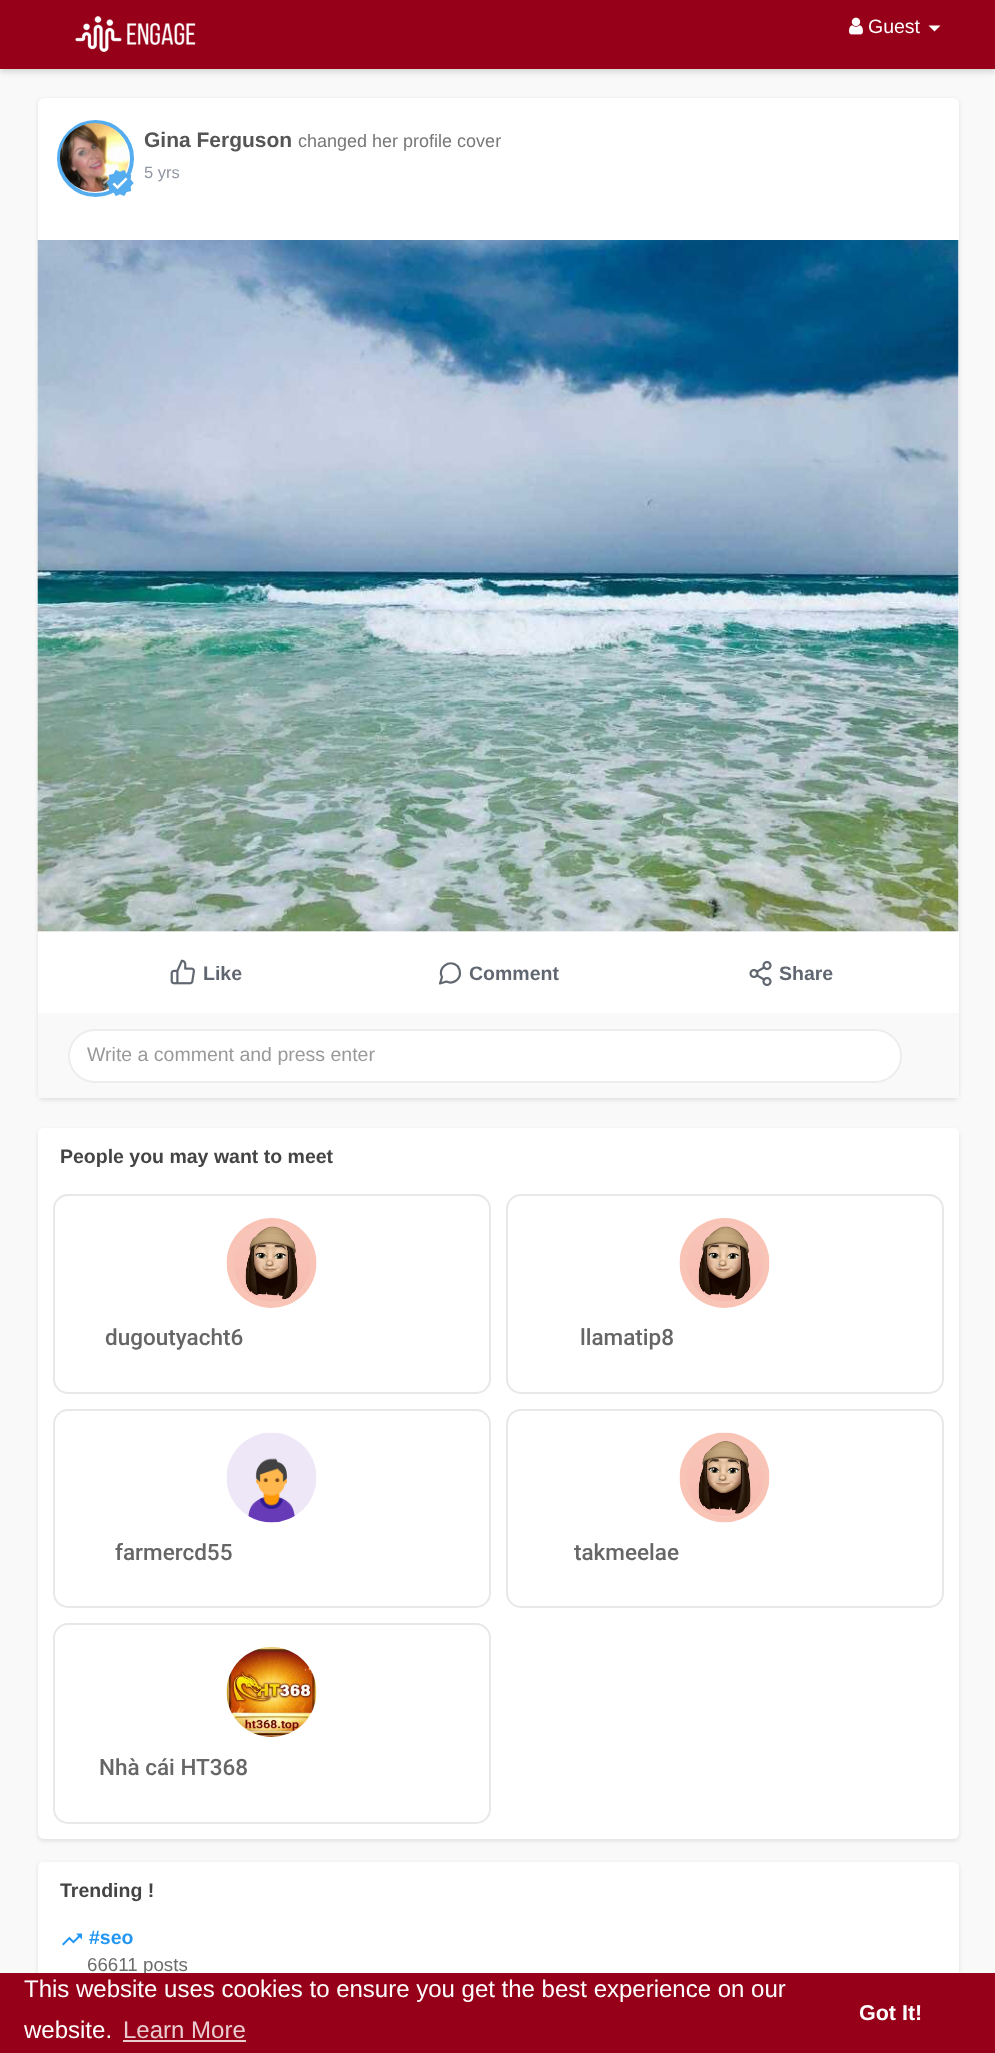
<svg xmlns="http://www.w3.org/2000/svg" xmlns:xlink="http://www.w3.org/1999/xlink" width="995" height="2053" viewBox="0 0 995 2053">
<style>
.cls-1{font:19.5px Liberation Sans;fill:#ffffff}
.cls-2{font:bold 21px Liberation Sans;fill:#555555}
.cls-3{font:18px Liberation Sans;fill:#777777}
.cls-4{font:16.5px Liberation Sans;fill:#9197a3}
.cls-5{font:bold 19.5px Liberation Sans;fill:#616770}
.cls-6{font:19.5px Liberation Sans;fill:#999999}
.cls-7{font:bold 19.5px Liberation Sans;fill:#444444}
.cls-8{font:500 22.5px Roboto;fill:#666666}
.cls-9{font:bold 19.5px Liberation Sans;fill:#2196f3}
.cls-10{font:18.75px Liberation Sans;fill:#6c6c6c}
.cls-11{font:24px Liberation Sans;fill:#ffffff}
.cls-12{font:24px Liberation Sans;fill:#eaccd1}
.cls-13{font:bold 21.5px Liberation Sans;fill:#ffffff}
</style>
<rect width="100%" height="100%" fill="#f9f9f9"/>
<rect fill="#000000" fill-opacity="0.15" filter="blur(3px)" x="0" y="3" width="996" height="69"/>
<rect fill="#960018" x="0" y="0" width="995" height="69"/>
<image xlink:href="image0.png" x="75" y="16" width="121" height="36"/>
<image xlink:href="image1.png" x="849" y="17" width="14" height="18"/>
<path fill="#ffffff" d="M928.5 25.5H940.5L934.5 31.5Z"/>
<rect fill="#000000" fill-opacity="0.1" filter="blur(2px)" x="38" y="99" width="921" height="1001" rx="6"/>
<rect fill="#ffffff" x="38" y="98" width="921" height="1000" rx="6"/>
<circle fill="none" stroke="#55acee" stroke-width="4" cx="95.5" cy="158.5" r="36.5"/>
<image xlink:href="image2.png" x="60" y="123" width="69" height="69"/>
<circle fill="#ffffff" cx="120" cy="183" r="9"/>
<image xlink:href="image3.png" x="106" y="170" width="28" height="26"/>
<rect fill="#f9f9f9" x="38" y="240" width="921" height="692"/>
<image xlink:href="image4.png" x="37" y="240" width="922" height="692"/>
<image xlink:href="image5.png" x="170" y="959" width="25" height="26"/>
<path fill="none" stroke="#616770" stroke-width="2.2" stroke-linecap="round" stroke-linejoin="round" d="M460 973C460 980 452.5 984.5 446.5 981.5L440 983.5L442 977C437 968 449.5 958.5 457.5 966C459 968 460 970.5 460 973Z"/>
<image xlink:href="image6.png" x="749" y="961" width="23" height="25"/>
<rect fill="#f9f9f9" x="38" y="1013" width="921" height="85"/>
<rect fill="#ffffff" stroke="#ededed" stroke-width="2" x="69" y="1030" width="832" height="52" rx="26"/>
<rect fill="#000000" fill-opacity="0.1" filter="blur(2px)" x="38" y="1130" width="921" height="711" rx="6"/>
<rect fill="#ffffff" x="38" y="1128" width="921" height="711" rx="6"/>
<path fill="#ffffff" d="M44 1128H953C956.5 1128 959 1130.5 959 1134V1187H38V1134C38 1130.5 40.5 1128 44 1128Z"/>
<rect fill="none" stroke="#e8e8e8" stroke-width="2" x="54" y="1195" width="436" height="198" rx="14"/>
<image xlink:href="image7.png" x="226" y="1218" width="91" height="90"/>
<rect fill="none" stroke="#e8e8e8" stroke-width="2" x="507" y="1195" width="436" height="198" rx="14"/>
<image xlink:href="image8.png" x="679" y="1218" width="91" height="90"/>
<rect fill="none" stroke="#e8e8e8" stroke-width="2" x="54" y="1410" width="436" height="197" rx="14"/>
<image xlink:href="image9.png" x="226" y="1432" width="91" height="91"/>
<rect fill="none" stroke="#e8e8e8" stroke-width="2" x="507" y="1410" width="436" height="197" rx="14"/>
<image xlink:href="image10.png" x="679" y="1432" width="91" height="91"/>
<rect fill="none" stroke="#e8e8e8" stroke-width="2" x="54" y="1624" width="436" height="199" rx="14"/>
<image xlink:href="image11.png" x="226" y="1647" width="91" height="90"/>
<rect fill="#000000" fill-opacity="0.1" filter="blur(2px)" x="38" y="1863" width="921" height="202" rx="6"/>
<rect fill="#ffffff" x="38" y="1862" width="921" height="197" rx="6"/>
<path fill="#ffffff" d="M44 1862H953C956.5 1862 959 1864.5 959 1868V1920H38V1868C38 1864.5 40.5 1862 44 1862Z"/>
<image xlink:href="image12.png" x="62" y="1933" width="20" height="13"/>
<text class="cls-1" x="868" y="33">Guest</text>
<text class="cls-2" x="144" y="147">Gina Ferguson</text>
<text class="cls-3" x="298" y="147">changed her profile cover</text>
<text class="cls-4" x="144" y="178">5 yrs</text>
<text class="cls-5" x="203" y="980">Like</text>
<text class="cls-5" x="469" y="980">Comment</text>
<text class="cls-5" x="779" y="980">Share</text>
<text class="cls-6" x="87" y="1061">Write a comment and press enter</text>
<text class="cls-7" x="60" y="1163">People you may want to meet</text>
<text class="cls-8" x="105" y="1345">dugoutyacht6</text>
<text class="cls-8" x="580" y="1345">llamatip8</text>
<text class="cls-8" x="115" y="1560">farmercd55</text>
<text class="cls-8" x="574" y="1560">takmeelae</text>
<text class="cls-8" x="99" y="1775">Nhà cái HT368</text>
<text class="cls-7" x="60" y="1897">Trending !</text>
<text class="cls-9" x="89" y="1944">#seo</text>
<text class="cls-10" x="87" y="1971">66611 posts</text>
<rect fill="#960018" x="0" y="1973" width="995" height="80"/>
<text class="cls-11"><tspan x="24" y="1997">This website uses cookies to ensure you get the best experience on our</tspan><tspan x="24" y="2038">website.</tspan></text>
<text class="cls-12" x="123" y="2038">Learn More</text>
<rect fill="#eaccd1" x="123" y="2040" width="123" height="2"/>
<text class="cls-13" x="859" y="2020">Got It!</text>
</svg>
